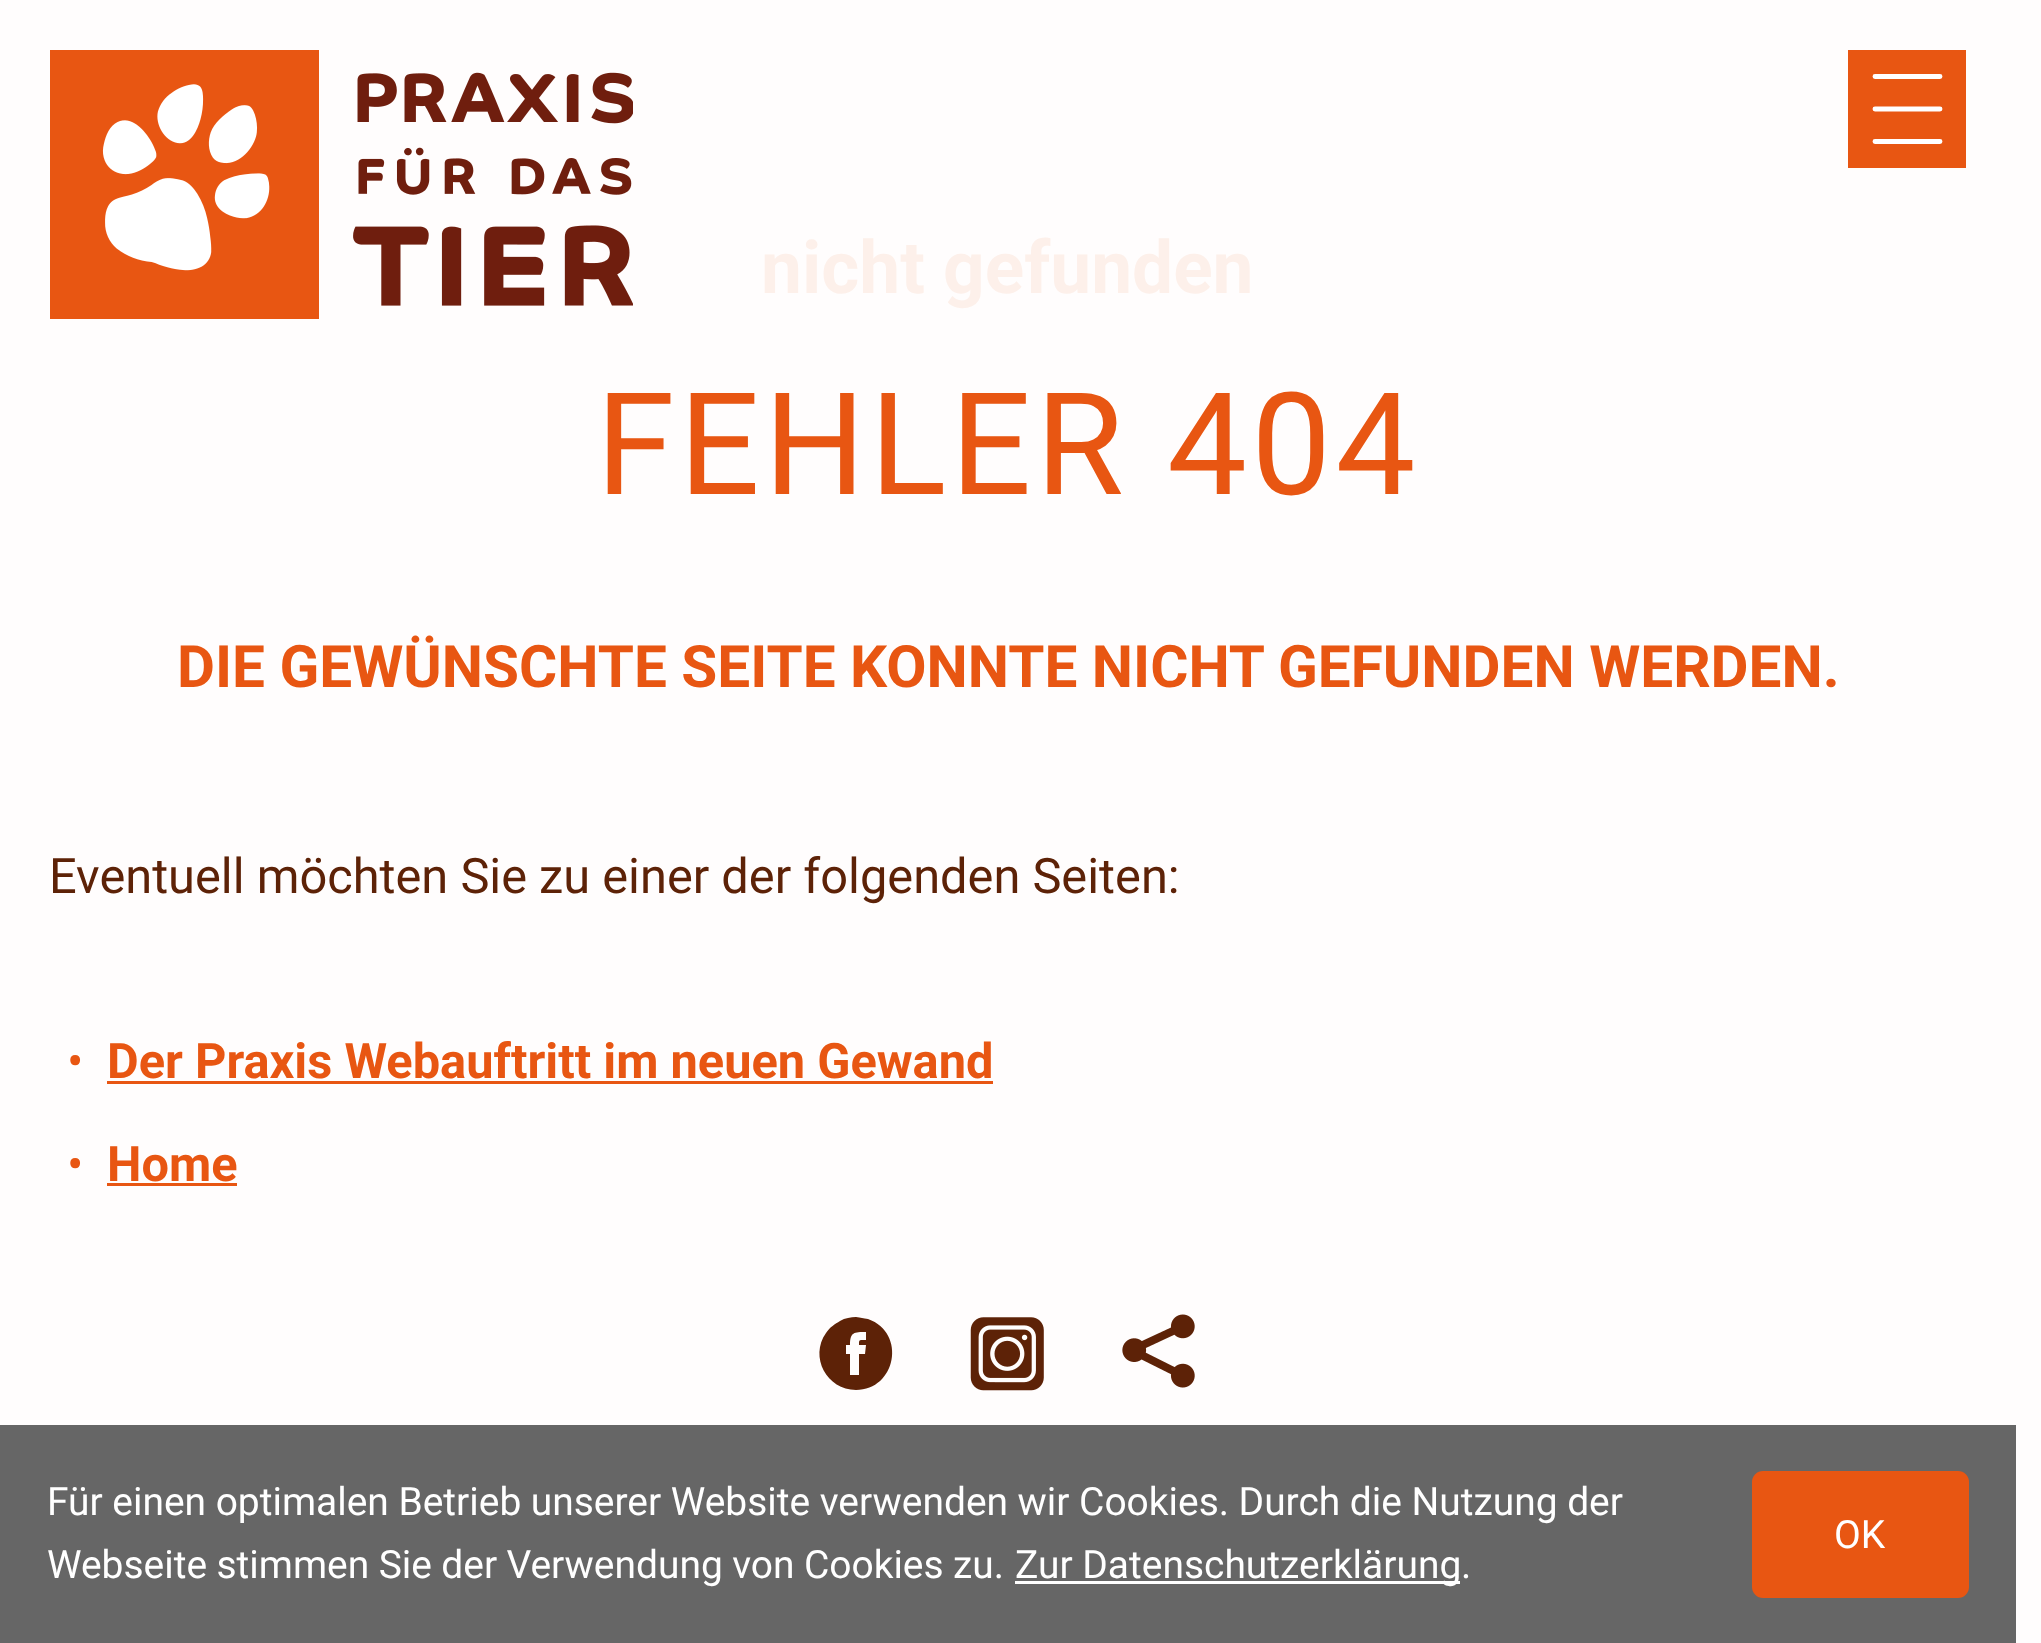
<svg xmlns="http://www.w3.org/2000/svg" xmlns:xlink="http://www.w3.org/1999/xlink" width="2041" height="1643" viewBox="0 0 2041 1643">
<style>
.cls-1{font:bold 73px Roboto;fill:#fdf0ea}
.cls-2{font:142.25px Roboto;letter-spacing:4.25px;fill:#e85612}
.cls-3{font:bold 58.45px Roboto;fill:#e85612}
.cls-4{font:48.75px Roboto;fill:#5d2207}
.cls-5{font:48.75px Roboto;fill:#e85612}
.cls-6{font:bold 48.75px Roboto;fill:#e85612}
.cls-7{font:38.95px Roboto;fill:#ffffff}
</style>
<rect width="100%" height="100%" fill="#fffdfd"/>
<image xlink:href="image0.png" x="50" y="50" width="583" height="269"/>
<rect fill="#e85612" x="1848" y="50" width="118" height="118"/>
<path fill="none" stroke="#ffffff" stroke-width="4.9" stroke-linecap="round" d="M1875 76.5H1940M1875 109H1940M1875 141.5H1940"/>
<rect fill="#e85612" x="107" y="1081" width="886" height="3"/>
<rect fill="#e85612" x="107" y="1183" width="130" height="3"/>
<path fill="#5d2207" d="M856 1390C827 1390 809 1357 826 1333C830 1327 835 1324 840 1321C845 1318 851 1317 856 1317C861 1318 863 1318 868 1319C907 1333 896 1390 856 1390ZM850 1354V1375H859V1354H865L866 1345H859C859 1339 859 1340 866 1340V1332C854 1332 850 1332 850 1345H846V1354Z"/>
<image xlink:href="image1.png" x="970" y="1317" width="74" height="74"/>
<image xlink:href="image2.png" x="1122" y="1314" width="73" height="74"/>
<rect fill="#666666" x="0" y="1425" width="2016" height="218"/>
<rect fill="#ffffff" x="1015" y="1581" width="445" height="3"/>
<rect fill="#e85612" x="1752" y="1471" width="217" height="127" rx="11"/>
<text class="cls-1" x="761" y="293">nicht gefunden</text>
<text class="cls-2" x="596" y="494">FEHLER 404</text>
<text class="cls-3" x="177" y="687">DIE GEWÜNSCHTE SEITE KONNTE NICHT GEFUNDEN WERDEN.</text>
<text class="cls-4" x="49" y="893">Eventuell möchten Sie zu einer der folgenden Seiten:</text>
<text class="cls-5" x="67" y="1078">•</text>
<text class="cls-6" x="107" y="1078">Der Praxis Webauftritt im neuen Gewand</text>
<text class="cls-5" x="67" y="1181">•</text>
<text class="cls-6" x="107" y="1181">Home</text>
<text class="cls-7"><tspan x="47" y="1515" word-spacing="-0.1">Für einen optimalen Betrieb unserer Website verwenden wir Cookies. Durch die Nutzung der</tspan><tspan x="47" y="1578" word-spacing="-0.25">Webseite stimmen Sie der Verwendung von Cookies zu.</tspan></text>
<text class="cls-7" x="1015" y="1578">Zur Datenschutzerklärung</text>
<text class="cls-7" x="1461" y="1578">.</text>
<text class="cls-7" x="1834" y="1548">OK</text>
</svg>
